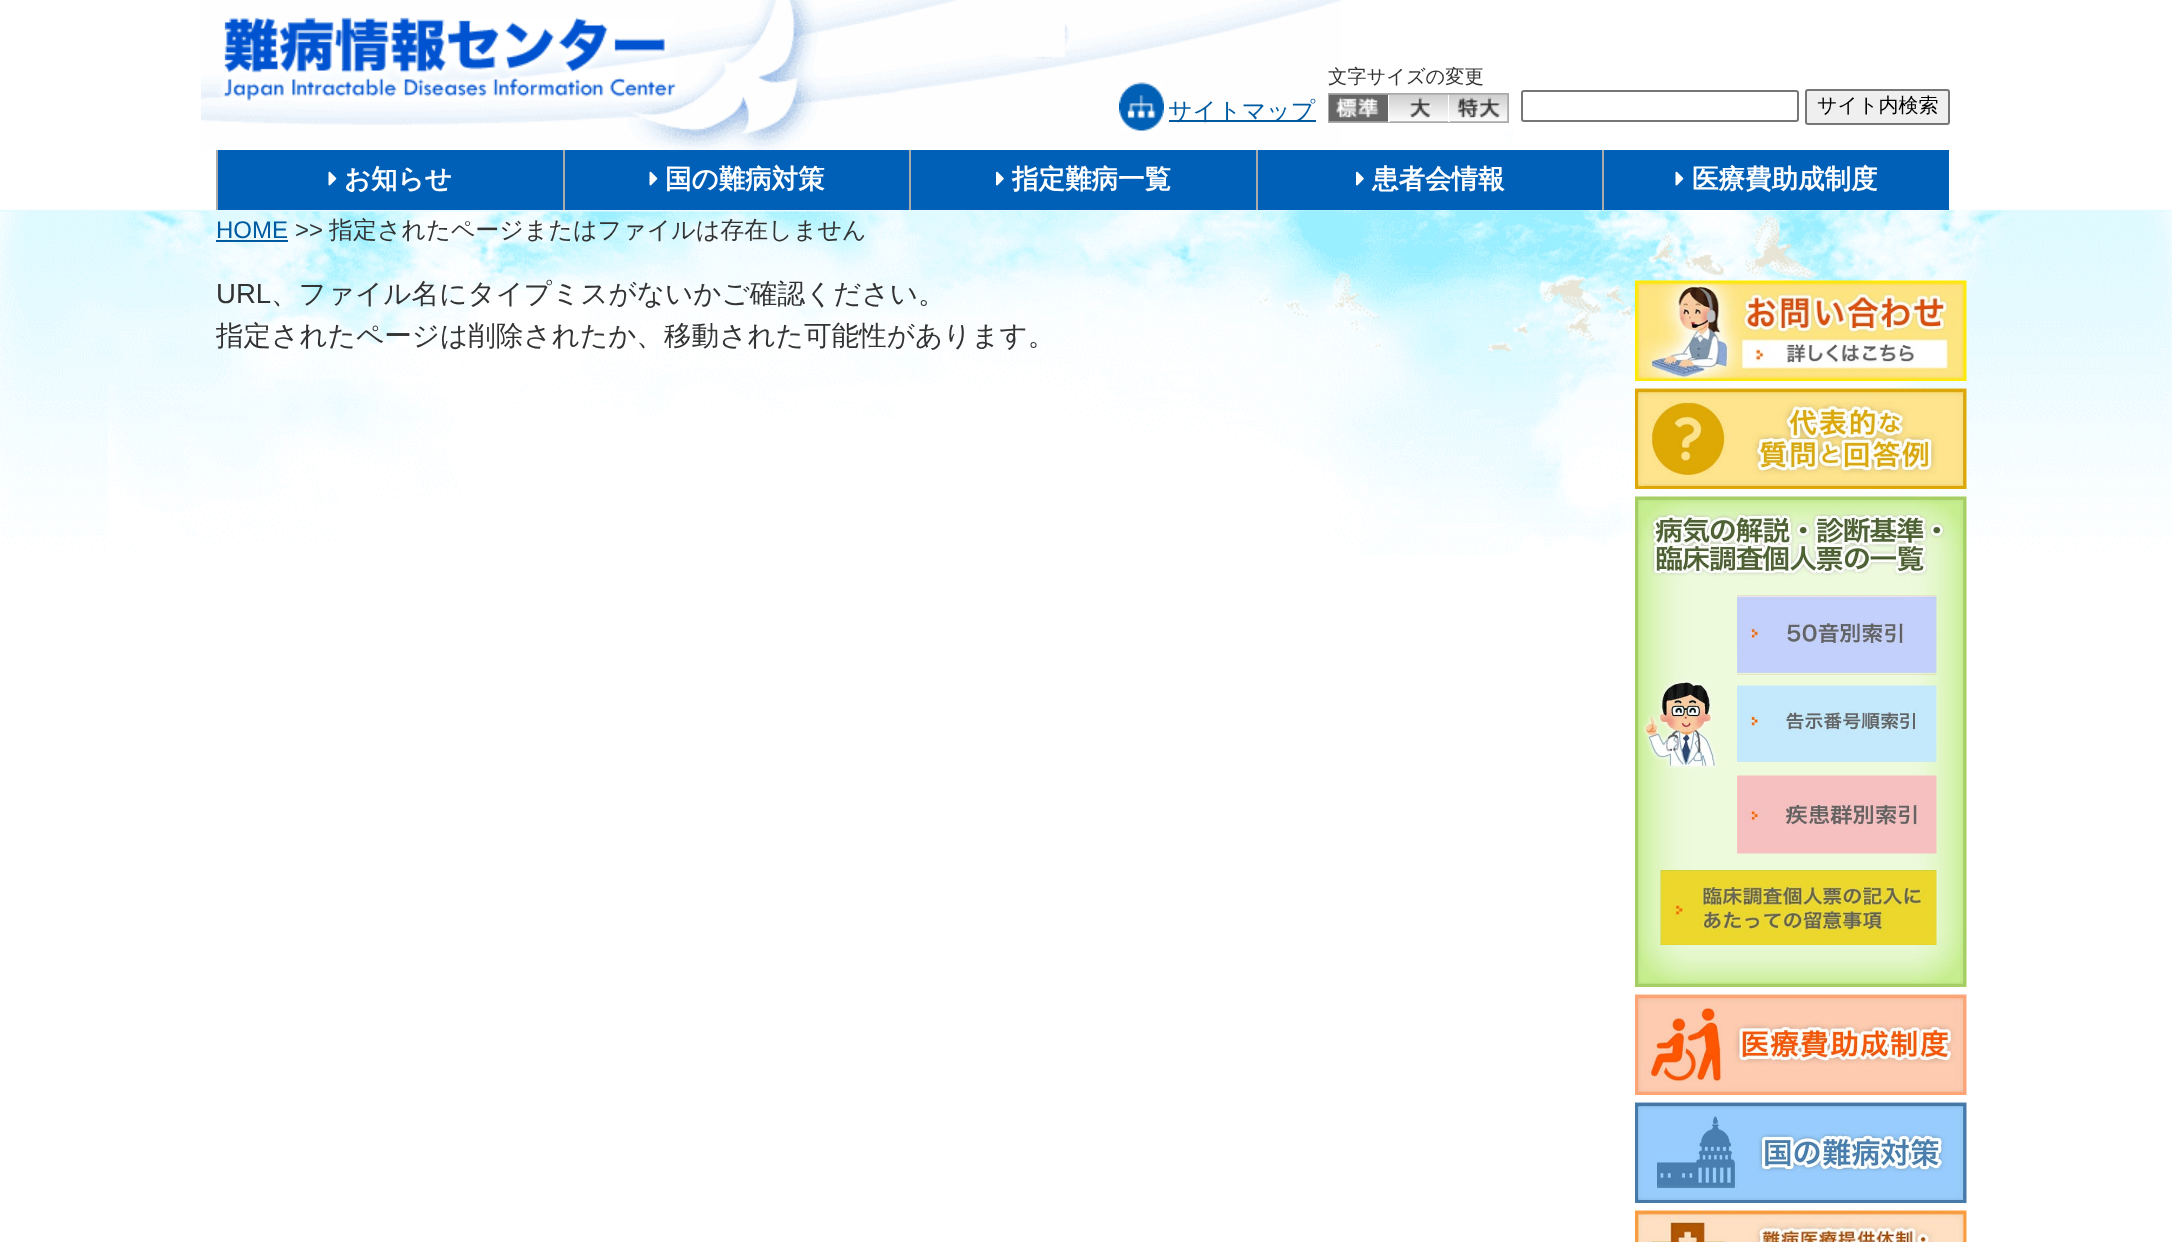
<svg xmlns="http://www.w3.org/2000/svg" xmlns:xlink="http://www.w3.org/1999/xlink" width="2172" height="1242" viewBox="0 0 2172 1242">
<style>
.cls-1{font:500 19.25px WenQuanYi Zen Hei;fill:#333333}
.cls-2{font:500 24px WenQuanYi Zen Hei;fill:#005aa0}
.cls-3{font:500 20px WenQuanYi Zen Hei;fill:#000000}
.cls-4{font:bold 26.5px WenQuanYi Zen Hei;fill:#ffffff}
.cls-5{font:24px Liberation Sans;fill:#005aa0}
.cls-6{font:24px Liberation Sans;fill:#333333}
.cls-7{font:500 24px WenQuanYi Zen Hei;fill:#333333}
.cls-8{font:27.6px Liberation Sans;fill:#333333}
.cls-9{font:500 27.6px WenQuanYi Zen Hei;fill:#333333}
</style>
<rect width="100%" height="100%" fill="#ffffff"/>
<image xlink:href="image0.png" x="0" y="114" width="2172" height="441"/>
<image xlink:href="image1.png" x="201" y="0" width="1140" height="150"/>
<image xlink:href="image2.png" x="225" y="18" width="450" height="83"/>
<rect fill="none" stroke="#aaaaaa" stroke-width="2" x="1329" y="94" width="179" height="28"/>
<image xlink:href="image3.png" x="1329" y="94" width="60" height="28"/>
<rect fill="#ffffff" x="1388" y="95" width="2" height="27"/>
<image xlink:href="image4.png" x="1389" y="94" width="60" height="28"/>
<rect fill="#ffffff" x="1448" y="95" width="2" height="27"/>
<image xlink:href="image5.png" x="1449" y="94" width="59" height="28"/>
<image xlink:href="image6.png" x="1119" y="82" width="45" height="49"/>
<rect fill="#005aa0" x="1169" y="120" width="147" height="2"/>
<rect fill="none" stroke="#767676" stroke-width="2" x="1522" y="91" width="276" height="30" rx="2"/>
<rect fill="#efefef" stroke="#767676" stroke-width="2" x="1806" y="90" width="143" height="34" rx="2"/>
<rect fill="#005fb6" x="218" y="150" width="345" height="60"/>
<rect fill="#aaaaaa" x="216" y="150" width="2" height="60"/>
<image xlink:href="image7.png" x="328" y="171" width="9" height="15"/>
<rect fill="#005fb6" x="565" y="150" width="344" height="60"/>
<rect fill="#aaaaaa" x="563" y="150" width="2" height="60"/>
<image xlink:href="image7.png" x="649" y="171" width="9" height="15"/>
<rect fill="#005fb6" x="911" y="150" width="345" height="60"/>
<rect fill="#aaaaaa" x="909" y="150" width="2" height="60"/>
<image xlink:href="image8.png" x="996" y="171" width="8" height="15"/>
<rect fill="#005fb6" x="1258" y="150" width="344" height="60"/>
<rect fill="#aaaaaa" x="1256" y="150" width="2" height="60"/>
<image xlink:href="image8.png" x="1356" y="171" width="8" height="15"/>
<rect fill="#005fb6" x="1604" y="150" width="345" height="60"/>
<rect fill="#aaaaaa" x="1602" y="150" width="2" height="60"/>
<image xlink:href="image7.png" x="1675" y="171" width="9" height="15"/>
<rect fill="#005aa0" x="216" y="240" width="72" height="2"/>
<image xlink:href="image9.png" x="1635" y="280" width="332" height="101"/>
<image xlink:href="image10.png" x="1635" y="388" width="332" height="101"/>
<image xlink:href="image11.png" x="1635" y="496" width="332" height="491"/>
<image xlink:href="image12.png" x="1737" y="595" width="200" height="80"/>
<image xlink:href="image13.png" x="1737" y="685" width="200" height="77"/>
<image xlink:href="image14.png" x="1737" y="775" width="200" height="79"/>
<image xlink:href="image15.png" x="1660" y="870" width="277" height="75"/>
<image xlink:href="image16.png" x="1635" y="994" width="332" height="101"/>
<image xlink:href="image17.png" x="1635" y="1102" width="332" height="101"/>
<image xlink:href="image18.png" x="1635" y="1210" width="332" height="32"/>
<text class="cls-1" x="1328" y="83">文字サイズの変更</text>
<text class="cls-2" x="1168" y="119">サイトマップ</text>
<text class="cls-3" x="1817" y="112">サイト内検索</text>
<text class="cls-4" x="344" y="188">お知らせ</text>
<text class="cls-4" x="665" y="188">国の難病対策</text>
<text class="cls-4" x="1012" y="188">指定難病一覧</text>
<text class="cls-4" x="1372" y="188">患者会情報</text>
<text class="cls-4" x="1692" y="188">医療費助成制度</text>
<text class="cls-5" x="216" y="238">HOME</text>
<text class="cls-6" x="295" y="238">&gt;&gt;</text>
<text class="cls-7" x="329" y="238">指定されたページまたはファイルは存在しません</text>
<text class="cls-8" x="216" y="303">URL</text>
<text class="cls-9" x="271" y="303">、ファイル名にタイプミスがないかご確認ください。</text>
<text class="cls-9" x="216" y="345">指定されたページは削除されたか、移動された可能性があります。</text>
</svg>
